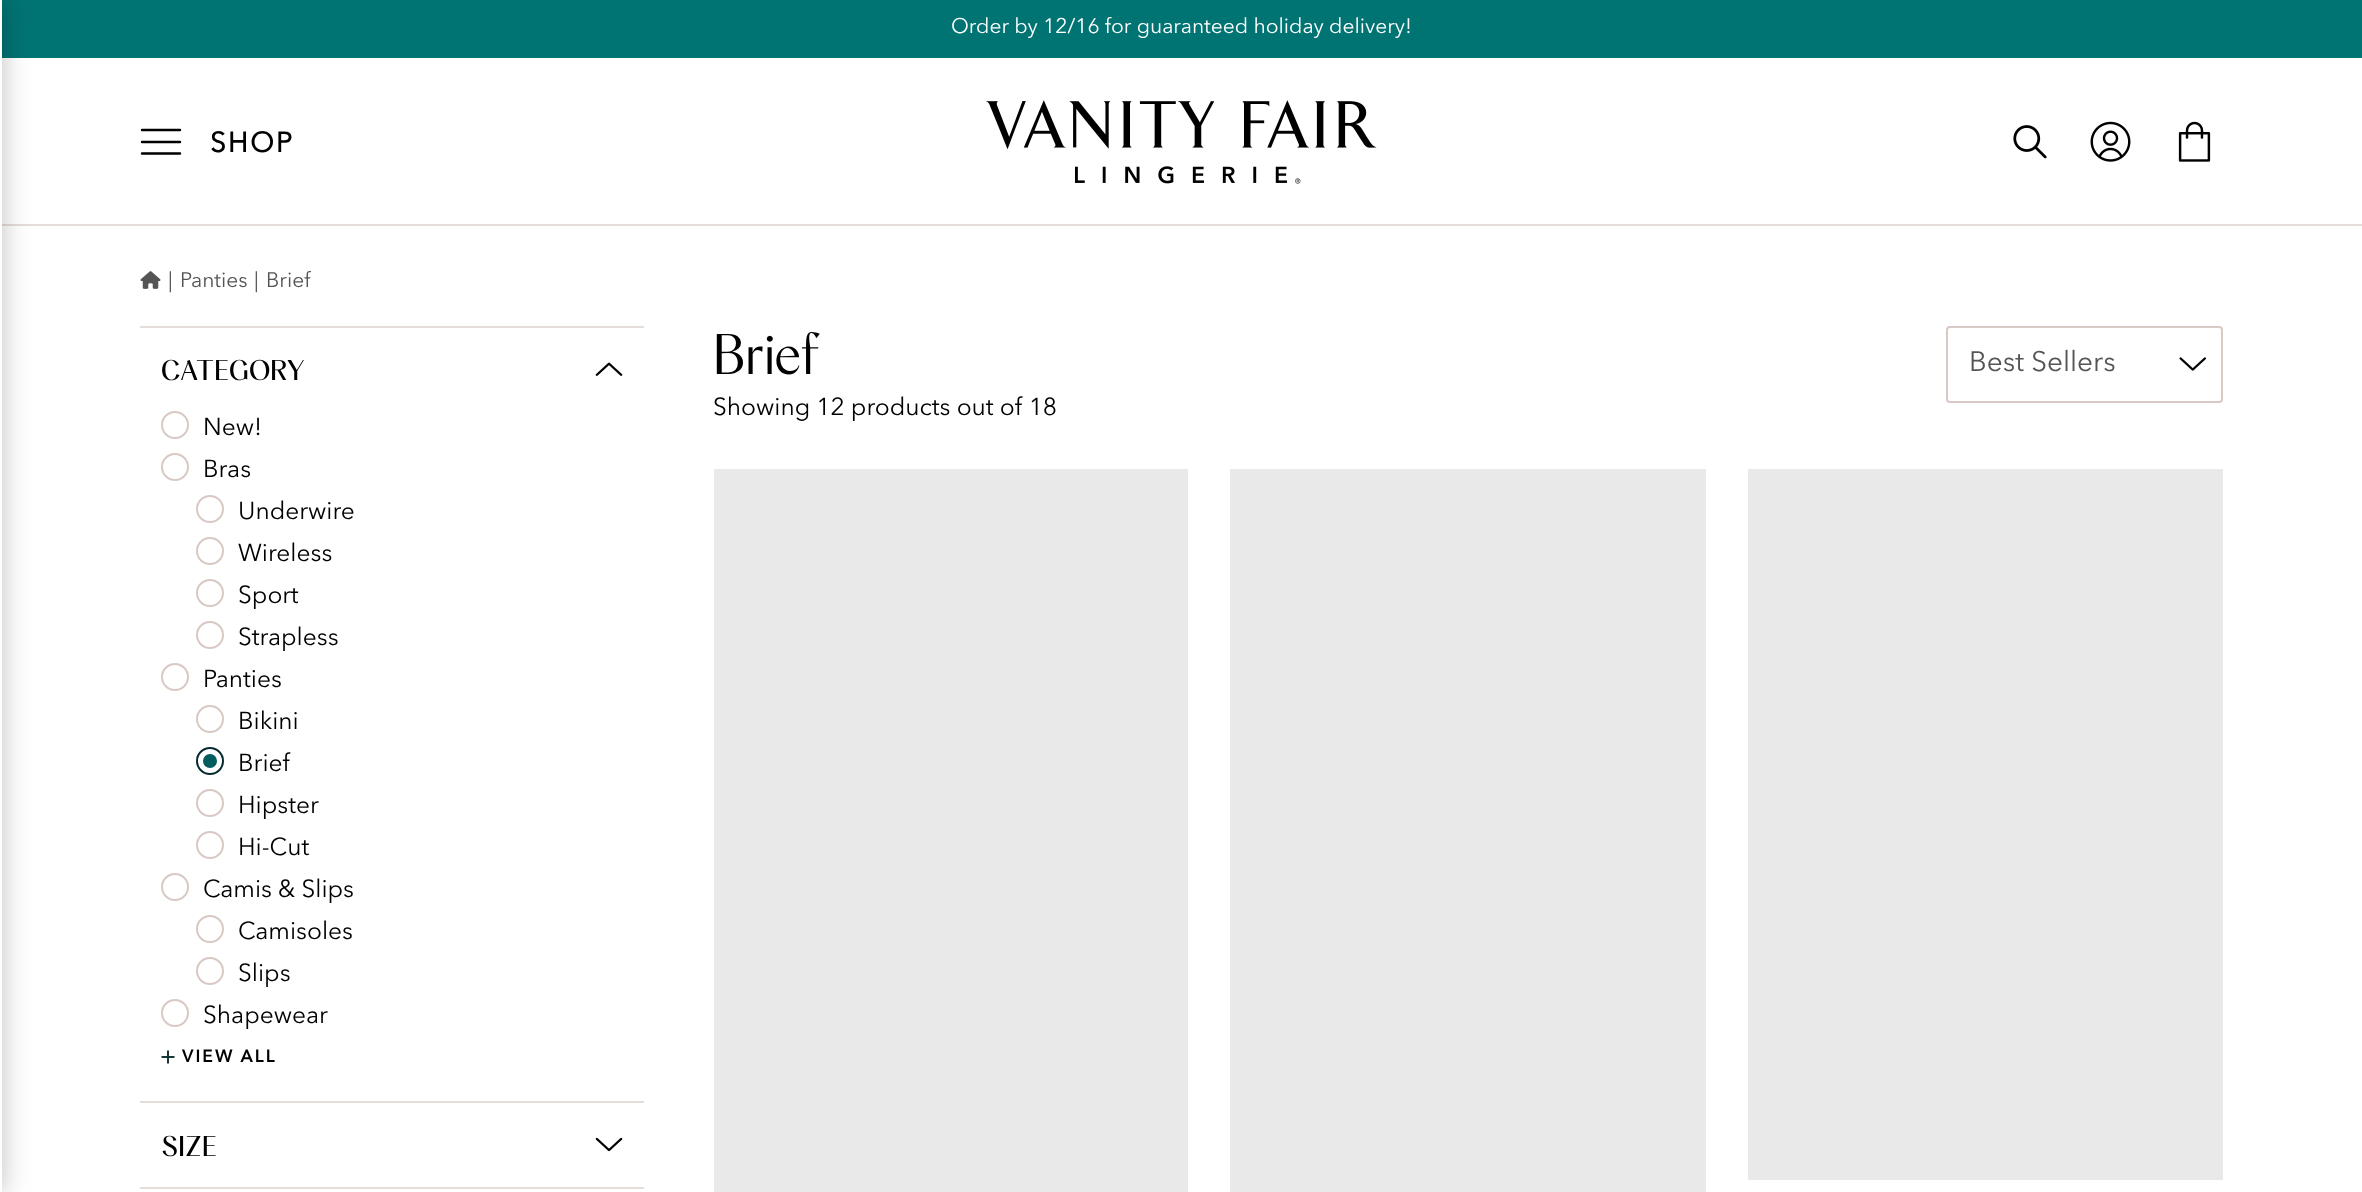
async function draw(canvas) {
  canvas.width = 2362
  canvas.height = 1192
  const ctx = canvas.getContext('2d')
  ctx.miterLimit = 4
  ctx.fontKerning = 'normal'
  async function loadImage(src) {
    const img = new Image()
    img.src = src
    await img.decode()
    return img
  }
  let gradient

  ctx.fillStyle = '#fff'
  ctx.fillRect(0, 0, 2362, 1192)
  ctx.fillStyle = '#007473'
  ctx.fillRect(2, 0, 2360, 58)
  ctx.font = '21px Avenir Next'
  ctx.fillStyle = '#fff'
  ctx.fillText('Order by 12/16 for guaranteed holiday delivery!', 951, 33)
  ctx.fillStyle = '#e6ddda'
  ctx.fillRect(0, 224, 2362, 2)
  ctx.fillStyle = '#00000040'
  ctx.filter = 'blur(14px)'
  ctx.beginPath()
  ctx.rect(-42, 0, 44, 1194)
  ctx.fill()
  ctx.filter = 'none'
  ctx.fillStyle = '#fff'
  ctx.fillRect(0, 0, 2, 1192)
  ctx.beginPath()
  ctx.moveTo(142, 153.5)
  ctx.lineTo(180, 153.5)
  ctx.moveTo(142, 142)
  ctx.lineTo(180, 142)
  ctx.moveTo(142, 130)
  ctx.lineTo(180, 130)
  ctx.strokeStyle = '#000'
  ctx.lineWidth = 2.4
  ctx.lineCap = 'round'
  ctx.lineJoin = 'round'
  ctx.stroke()
  ctx.letterSpacing = '2px'
  ctx.font = 'bold 28px "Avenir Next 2"'
  ctx.fillStyle = '#000'
  ctx.fillText('SHOP', 210, 152)
  ctx.drawImage(await loadImage('image0.png'), 986, 100, 391, 84)
  ctx.drawImage(await loadImage('image1.png'), 2013, 125, 34, 34)
  ctx.drawImage(await loadImage('image2.png'), 2090, 121, 41, 41)
  ctx.drawImage(await loadImage('image3.png'), 2178, 121, 33, 41)
  ctx.drawImage(await loadImage('image4.png'), 140, 271, 21, 18)
  ctx.letterSpacing = '0px'
  ctx.font = '21px Avenir Next'
  ctx.fillStyle = '#555'
  ctx.fillText('|', 168, 287)
  ctx.fillText('Panties', 180, 287)
  ctx.fillText('|', 254, 287)
  ctx.fillText('Brief', 266, 287)
  ctx.fillStyle = '#e6ddda'
  ctx.fillRect(140, 326, 504, 2)
  ctx.font = '28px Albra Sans'
  ctx.fillStyle = '#000'
  ctx.fillText('CATEGORY', 161, 380)
  ctx.drawImage(await loadImage('image5.png'), 595, 362, 28, 14)
  ctx.beginPath()
  ctx.arc(175, 425, 13, 0, 2 * Math.PI)
  ctx.strokeStyle = '#d8c9c4'
  ctx.lineWidth = 2
  ctx.stroke()
  ctx.font = '24.5px Avenir Next'
  ctx.fillText('New!', 203, 435)
  ctx.beginPath()
  ctx.arc(175, 467, 13, 0, 2 * Math.PI)
  ctx.stroke()
  ctx.fillText('Bras', 203, 477)
  ctx.beginPath()
  ctx.arc(210, 509, 13, 0, 2 * Math.PI)
  ctx.stroke()
  ctx.fillText('Underwire', 238, 519)
  ctx.beginPath()
  ctx.arc(210, 551, 13, 0, 2 * Math.PI)
  ctx.stroke()
  ctx.fillText('Wireless', 238, 561)
  ctx.beginPath()
  ctx.arc(210, 593, 13, 0, 2 * Math.PI)
  ctx.stroke()
  ctx.fillText('Sport', 238, 603)
  ctx.beginPath()
  ctx.arc(210, 635, 13, 0, 2 * Math.PI)
  ctx.stroke()
  ctx.fillText('Strapless', 238, 645)
  ctx.beginPath()
  ctx.arc(175, 677, 13, 0, 2 * Math.PI)
  ctx.stroke()
  ctx.fillText('Panties', 203, 687)
  ctx.beginPath()
  ctx.arc(210, 719, 13, 0, 2 * Math.PI)
  ctx.stroke()
  ctx.fillText('Bikini', 238, 729)
  ctx.beginPath()
  ctx.arc(210, 761, 13, 0, 2 * Math.PI)
  ctx.strokeStyle = '#072a31'
  ctx.stroke()
  ctx.fillStyle = '#005c5d'
  ctx.beginPath()
  ctx.arc(210, 761, 7, 0, 2 * Math.PI)
  ctx.fill()
  ctx.fillStyle = '#000'
  ctx.fillText('Brief', 238, 771)
  ctx.beginPath()
  ctx.arc(210, 803, 13, 0, 2 * Math.PI)
  ctx.strokeStyle = '#d8c9c4'
  ctx.stroke()
  ctx.fillText('Hipster', 238, 813)
  ctx.beginPath()
  ctx.arc(210, 845, 13, 0, 2 * Math.PI)
  ctx.stroke()
  ctx.fillText('Hi-Cut', 238, 855)
  ctx.beginPath()
  ctx.arc(175, 887, 13, 0, 2 * Math.PI)
  ctx.stroke()
  ctx.fillText('Camis & Slips', 203, 897)
  ctx.beginPath()
  ctx.arc(210, 929, 13, 0, 2 * Math.PI)
  ctx.stroke()
  ctx.fillText('Camisoles', 238, 939)
  ctx.beginPath()
  ctx.arc(210, 971, 13, 0, 2 * Math.PI)
  ctx.stroke()
  ctx.fillText('Slips', 238, 981)
  ctx.beginPath()
  ctx.arc(175, 1013, 13, 0, 2 * Math.PI)
  ctx.stroke()
  ctx.fillText('Shapewear', 203, 1023)
  ctx.drawImage(await loadImage('image6.png'), 161, 1050, 14, 14)
  ctx.letterSpacing = '2px'
  ctx.font = 'bold 17.5px Avenir Next'
  ctx.fillText('VIEW ALL', 182, 1062)
  ctx.fillStyle = '#e6ddda'
  ctx.fillRect(140, 1101, 504, 2)
  ctx.letterSpacing = '0px'
  ctx.font = '28px Albra Sans'
  ctx.fillStyle = '#000'
  ctx.fillText('SIZE', 161, 1156)
  ctx.drawImage(await loadImage('image7.png'), 595, 1137, 28, 15)
  ctx.fillStyle = '#e6ddda'
  ctx.fillRect(140, 1187, 504, 2)
  ctx.font = '300 56px Albra Sans'
  ctx.fillStyle = '#000'
  ctx.fillText('Brief', 713, 374)
  ctx.font = '24.5px Avenir Next'
  ctx.fillText('Showing 12 products out of 18', 713, 415)
  ctx.drawImage(await loadImage('image8.png'), 2179, 357, 27, 14)
  ctx.beginPath()
  ctx.roundRect(1947, 327, 275, 75, 3)
  ctx.lineJoin = 'miter'
  ctx.stroke()
  ctx.font = '28px Avenir Next'
  ctx.fillStyle = '#555'
  ctx.fillText('Best Sellers', 1969, 371)
  gradient = ctx.createLinearGradient(785, 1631, -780, 66)
  gradient.addColorStop(0.4, '#e9e9e9')
  gradient.addColorStop(0.5, '#f7f7f7')
  gradient.addColorStop(0.6, '#e9e9e9')
  ctx.fillStyle = gradient
  ctx.fillRect(714, 469, 474, 723)
  gradient = ctx.createLinearGradient(1301, 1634, -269, 64)
  gradient.addColorStop(0.4, '#e9e9e9')
  gradient.addColorStop(0.5, '#f7f7f7')
  gradient.addColorStop(0.6, '#e9e9e9')
  ctx.fillStyle = gradient
  ctx.fillRect(1230, 469, 476, 723)
  gradient = ctx.createLinearGradient(1807, 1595, 266, 54)
  gradient.addColorStop(0.4, '#e9e9e9')
  gradient.addColorStop(0.5, '#f7f7f7')
  gradient.addColorStop(0.6, '#e9e9e9')
  ctx.fillStyle = gradient
  ctx.fillRect(1748, 469, 475, 711)
}

draw(document.querySelector('canvas'))
